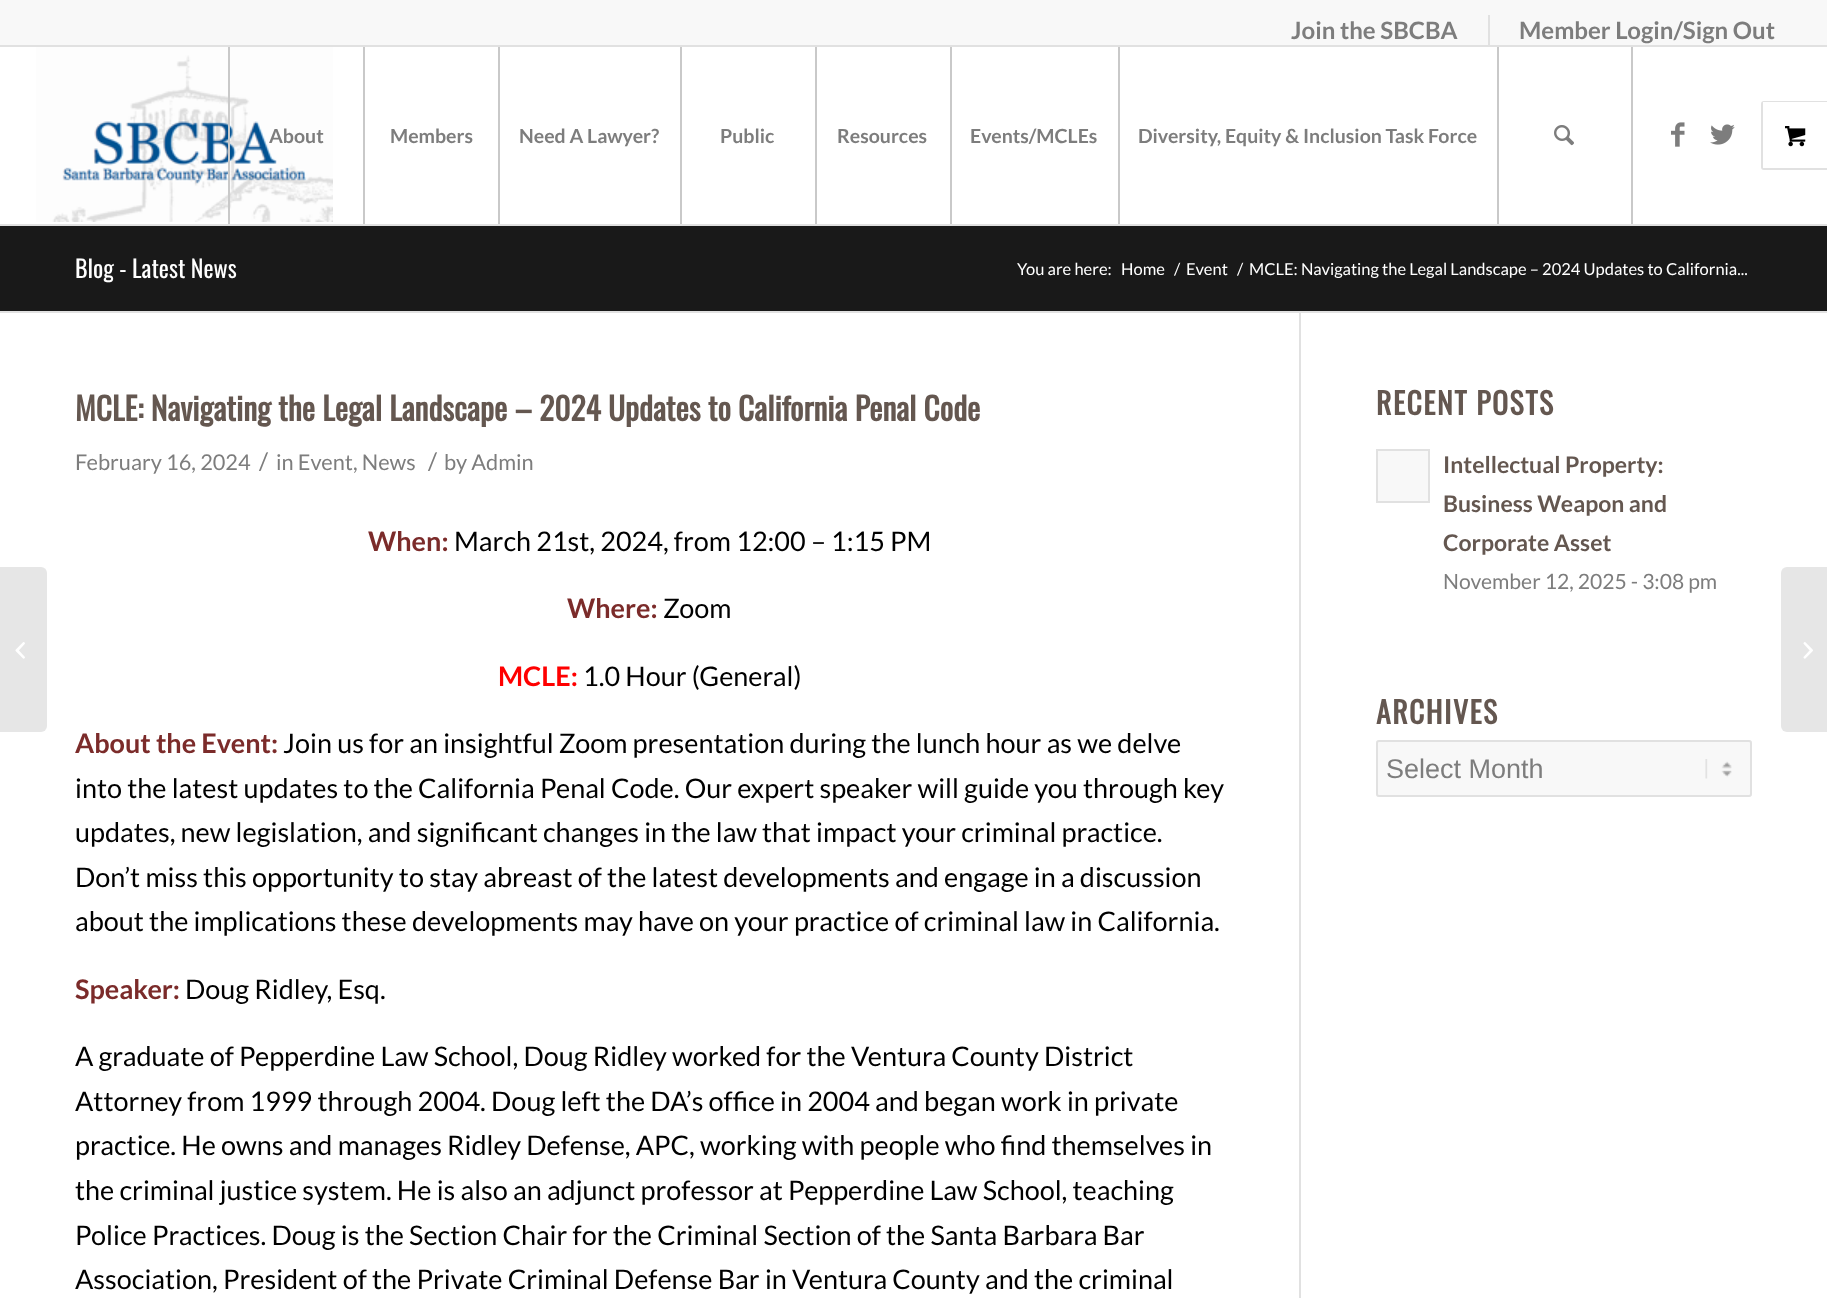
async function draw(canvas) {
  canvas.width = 1827
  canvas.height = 1298
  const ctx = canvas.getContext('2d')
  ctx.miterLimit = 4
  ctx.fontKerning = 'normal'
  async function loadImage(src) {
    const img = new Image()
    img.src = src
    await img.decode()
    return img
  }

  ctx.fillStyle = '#fff'
  ctx.fillRect(0, 0, 1827, 1298)
  ctx.fillStyle = '#f8f8f8'
  ctx.fillRect(0, 0, 1827, 45)
  ctx.fillStyle = '#e1e1e1'
  ctx.fillRect(0, 45, 1827, 2)
  ctx.fillRect(1488, 15, 2, 30)
  ctx.font = 'bold 24px Lato'
  ctx.fillStyle = '#7d7d7d'
  ctx.fillText('Join the SBCBA', 1291, 39)
  ctx.fillText('Member Login/Sign Out', 1519, 39)
  ctx.fillStyle = '#e1e1e1'
  ctx.fillRect(0, 224, 1827, 2)
  ctx.drawImage(await loadImage('image0.png'), 36, 47, 297, 175)
  ctx.fillStyle = '#c9c9c9'
  ctx.fillRect(228, 47, 2, 177)
  ctx.font = 'bold 19.5px Lato'
  ctx.fillStyle = '#7d7d7d'
  ctx.fillText('About', 269, 143)
  ctx.fillStyle = '#c9c9c9'
  ctx.fillRect(363, 47, 2, 177)
  ctx.fillStyle = '#7d7d7d'
  ctx.fillText('Members', 390, 143)
  ctx.fillStyle = '#c9c9c9'
  ctx.fillRect(498, 47, 2, 177)
  ctx.fillStyle = '#7d7d7d'
  ctx.fillText('Need A Lawyer?', 519, 143)
  ctx.fillStyle = '#c9c9c9'
  ctx.fillRect(680, 47, 2, 177)
  ctx.fillStyle = '#7d7d7d'
  ctx.fillText('Public', 720, 143)
  ctx.fillStyle = '#c9c9c9'
  ctx.fillRect(815, 47, 2, 177)
  ctx.fillStyle = '#7d7d7d'
  ctx.fillText('Resources', 837, 143)
  ctx.fillStyle = '#c9c9c9'
  ctx.fillRect(950, 47, 2, 177)
  ctx.fillStyle = '#7d7d7d'
  ctx.fillText('Events/MCLEs', 970, 143)
  ctx.fillStyle = '#c9c9c9'
  ctx.fillRect(1118, 47, 2, 177)
  ctx.fillStyle = '#7d7d7d'
  ctx.fillText('Diversity, Equity & Inclusion Task Force', 1138, 143)
  ctx.fillStyle = '#c9c9c9'
  ctx.fillRect(1631, 47, 2, 177)
  ctx.fillRect(1497, 47, 2, 177)
  ctx.drawImage(await loadImage('image1.png'), 1554, 125, 20, 21)
  ctx.drawImage(await loadImage('image2.png'), 1671, 122, 14, 25)
  ctx.drawImage(await loadImage('image3.png'), 1710, 124, 25, 21)
  ctx.beginPath()
  ctx.roundRect(1762, 102, 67, 67, 2)
  ctx.strokeStyle = '#e1e1e1'
  ctx.lineWidth = 2
  ctx.stroke()
  ctx.fillStyle = '#fff'
  ctx.fillRect(1763, 102, 64, 66)
  ctx.drawImage(await loadImage('image4.png'), 1785, 126, 21, 21)
  ctx.fillStyle = '#e6e6e6'
  ctx.beginPath()
  ctx.roundRect(0, 567, 47, 165, [0, 6, 6, 0])
  ctx.fill()
  ctx.drawImage(await loadImage('image5.png'), 15, 642, 10, 17)
  ctx.fillStyle = '#191919'
  ctx.fillRect(0, 226, 1827, 85)
  ctx.font = '24px Oswald'
  ctx.fillStyle = '#fff'
  ctx.fillText('Blog - Latest News', 75, 278)
  ctx.font = '16.5px Lato'
  ctx.fillText('You are here:', 1017, 275)
  ctx.fillText('Home', 1121, 275)
  ctx.fillText('/', 1174, 275)
  ctx.fillText('Event', 1186, 275)
  ctx.fillText('/', 1237, 275)
  ctx.fillText('MCLE: Navigating the Legal Landscape – 2024 Updates to California...', 1249, 275)
  ctx.fillStyle = '#e1e1e1'
  ctx.fillRect(0, 311, 1827, 2)
  ctx.fillRect(1299, 312, 2, 986)
  ctx.font = 'bold 31.5px Oswald'
  ctx.fillStyle = '#645750'
  ctx.fillText('MCLE: Navigating the Legal Landscape – 2024 Updates to California Penal Code', 75, 421)
  ctx.font = '21.75px Lato'
  ctx.fillStyle = '#7d7d7d'
  ctx.fillText('February 16, 2024', 75, 470)
  ctx.font = '24px Lato'
  ctx.fillText('/', 259, 470)
  ctx.font = '21.75px Lato'
  ctx.fillText('in Event, News', 276, 470)
  ctx.font = '24px Lato'
  ctx.fillText('/', 428, 470)
  ctx.font = '21.75px Lato'
  ctx.fillText('by Admin', 444, 470)
  ctx.font = 'bold 27px Lato'
  ctx.fillStyle = '#7b2b2a'
  ctx.fillText('When:', 368, 551)
  ctx.font = '27px Lato'
  ctx.fillStyle = '#000'
  ctx.fillText('March 21st, 2024, from 12:00 – 1:15 PM', 454, 551)
  ctx.font = 'bold 27px Lato'
  ctx.fillStyle = '#7b2b2a'
  ctx.fillText('Where:', 567, 618)
  ctx.font = '27px Lato'
  ctx.fillStyle = '#000'
  ctx.fillText('Zoom', 663, 618)
  ctx.font = 'bold 27px Lato'
  ctx.fillStyle = '#f00'
  ctx.fillText('MCLE:', 498, 686)
  ctx.font = '27px Lato'
  ctx.fillStyle = '#000'
  ctx.fillText('1.0 Hour (General)', 583, 686)
  ctx.font = 'bold 27px Lato'
  ctx.fillStyle = '#7b2b2a'
  ctx.fillText('About the Event:', 75, 753)
  ctx.font = '27px Lato'
  ctx.fillStyle = '#000'
  ctx.fillText('Join us for an insightful Zoom presentation during the lunch hour as we delve', 283, 753)
  ctx.fillText('into the latest updates to the California Penal Code. Our expert speaker will guide you through key', 75, 798)
  ctx.fillText('updates, new legislation, and significant changes in the law that impact your criminal practice.', 75, 842)
  ctx.fillText('Don’t miss this opportunity to stay abreast of the latest developments and engage in a discussion', 75, 887)
  ctx.fillText('about the implications these developments may have on your practice of criminal law in California.', 75, 931)
  ctx.font = 'bold 27px Lato'
  ctx.fillStyle = '#7b2b2a'
  ctx.fillText('Speaker:', 75, 999)
  ctx.font = '27px Lato'
  ctx.fillStyle = '#000'
  ctx.fillText('Doug Ridley, Esq.', 185, 999)
  ctx.fillText('A graduate of Pepperdine Law School, Doug Ridley worked for the Ventura County District', 75, 1066)
  ctx.fillText('Attorney from 1999 through 2004. Doug left the DA’s office in 2004 and began work in private', 75, 1111)
  ctx.fillText('practice. He owns and manages Ridley Defense, APC, working with people who find themselves in', 75, 1155)
  ctx.fillText('the criminal justice system. He is also an adjunct professor at Pepperdine Law School, teaching', 75, 1200)
  ctx.fillText('Police Practices. Doug is the Section Chair for the Criminal Section of the Santa Barbara Bar', 75, 1245)
  ctx.fillText('Association, President of the Private Criminal Defense Bar in Ventura County and the criminal', 75, 1289)
  ctx.letterSpacing = '1.5px'
  ctx.font = 'bold 29.75px Oswald'
  ctx.fillStyle = '#645750'
  ctx.fillText('RECENT POSTS', 1376, 415)
  ctx.fillStyle = '#f8f8f8'
  ctx.beginPath()
  ctx.rect(1377, 450, 52, 52)
  ctx.fill()
  ctx.stroke()
  ctx.letterSpacing = '0px'
  ctx.font = 'bold 23px Lato'
  ctx.fillStyle = '#645750'
  ctx.fillText('Intellectual Property:', 1443, 473)
  ctx.fillText('Business Weapon and', 1443, 512)
  ctx.fillText('Corporate Asset', 1443, 551)
  ctx.font = '21.1px Lato'
  ctx.fillStyle = '#7d7d7d'
  ctx.fillText('November 12, 2025 - 3:08 pm', 1443, 589)
  ctx.letterSpacing = '1.5px'
  ctx.font = 'bold 29.75px Oswald'
  ctx.fillStyle = '#645750'
  ctx.fillText('ARCHIVES', 1376, 724)
  ctx.fillStyle = '#f8f8f8'
  ctx.beginPath()
  ctx.roundRect(1376, 740, 376, 57, 3)
  ctx.fill()
  ctx.drawImage(await loadImage('image6.png'), 1705, 759, 27, 20)
  ctx.beginPath()
  ctx.roundRect(1377, 741, 374, 55, 2)
  ctx.stroke()
  ctx.letterSpacing = '0px'
  ctx.font = '27px Liberation Sans'
  ctx.fillStyle = '#7d7d7d'
  ctx.fillText('Select Month', 1386, 778)
  ctx.fillStyle = '#e6e6e6'
  ctx.beginPath()
  ctx.roundRect(1781, 567, 46, 165, [6, 0, 0, 6])
  ctx.fill()
  ctx.drawImage(await loadImage('image7.png'), 1803, 642, 10, 17)
}

draw(document.querySelector('canvas'))
